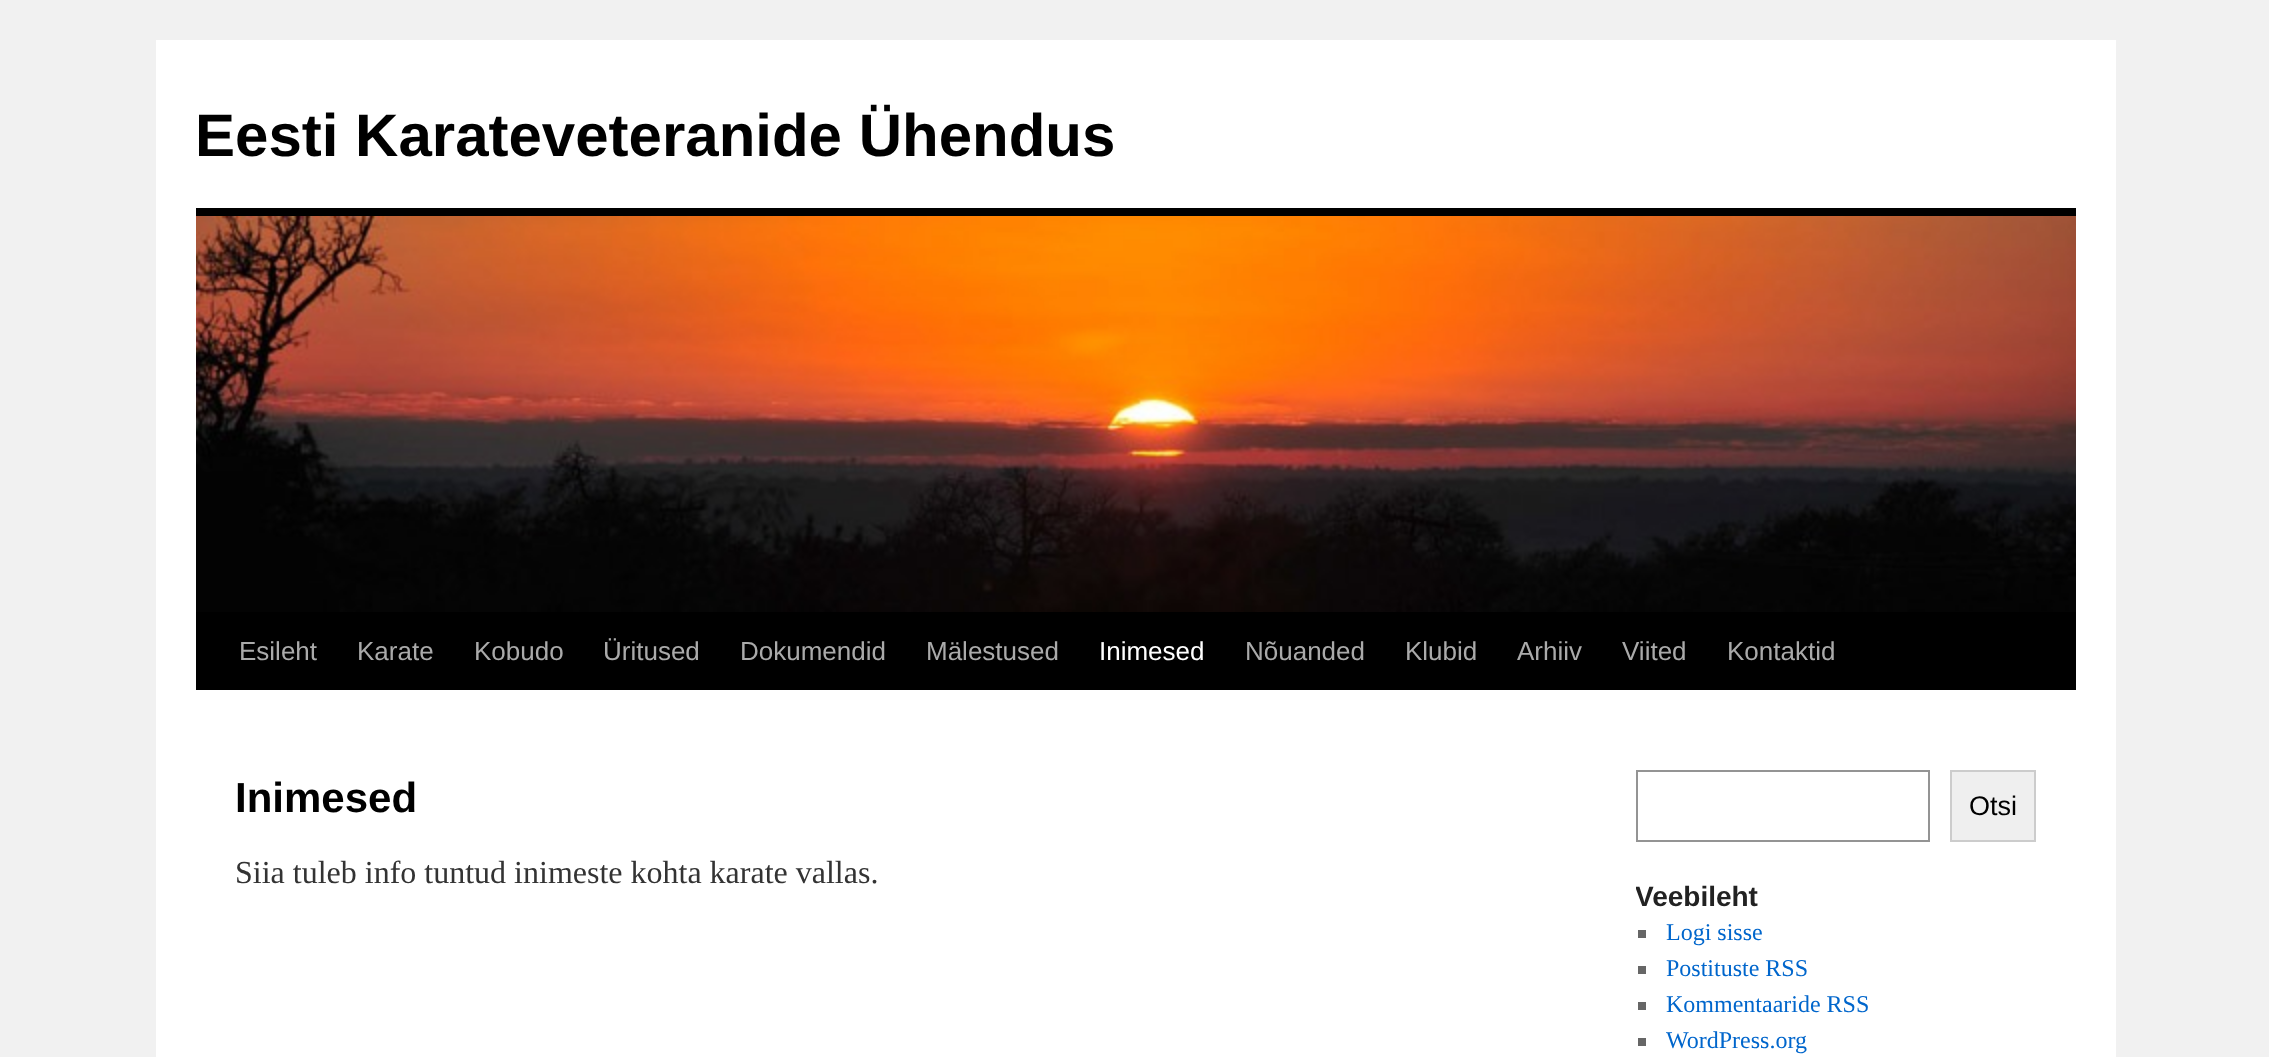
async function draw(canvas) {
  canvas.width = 2269
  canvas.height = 1057
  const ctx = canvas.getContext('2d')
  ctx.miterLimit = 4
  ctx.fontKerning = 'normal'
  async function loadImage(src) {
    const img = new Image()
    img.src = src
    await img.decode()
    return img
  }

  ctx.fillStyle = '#f1f1f1'
  ctx.fillRect(0, 0, 2269, 1057)
  ctx.fillStyle = '#fff'
  ctx.fillRect(156, 40, 1960, 1017)
  ctx.font = 'bold 60px Liberation Sans'
  ctx.fillStyle = '#000'
  ctx.fillText('Eesti Karateveteranide Ühendus', 195, 156)
  ctx.fillRect(196, 208, 1880, 8)
  ctx.fillRect(196, 612, 1880, 78)
  ctx.drawImage(await loadImage('image0.png'), 196, 216, 1880, 396)
  ctx.font = '26px Liberation Sans'
  ctx.fillStyle = '#aaa'
  ctx.fillText('Esileht', 239, 660)
  ctx.fillText('Karate', 357, 660)
  ctx.fillText('Kobudo', 474, 660)
  ctx.fillText('Üritused', 603, 660)
  ctx.fillText('Dokumendid', 740, 660)
  ctx.fillText('Mälestused', 926, 660)
  ctx.fillStyle = '#fff'
  ctx.fillText('Inimesed', 1099, 660)
  ctx.fillStyle = '#aaa'
  ctx.fillText('Nõuanded', 1245, 660)
  ctx.fillText('Klubid', 1405, 660)
  ctx.fillText('Arhiiv', 1517, 660)
  ctx.fillText('Viited', 1622, 660)
  ctx.fillText('Kontaktid', 1727, 660)
  ctx.font = 'bold 42px Liberation Sans'
  ctx.fillStyle = '#000'
  ctx.fillText('Inimesed', 235, 812)
  ctx.font = '32px Liberation Serif'
  ctx.fillStyle = '#333'
  ctx.fillText('Siia tuleb info tuntud inimeste kohta karate vallas.', 235, 883)
  ctx.strokeStyle = '#949494'
  ctx.lineWidth = 2
  ctx.strokeRect(1637, 771, 292, 70)
  ctx.fillStyle = '#efefef'
  ctx.beginPath()
  ctx.rect(1951, 771, 84, 70)
  ctx.fill()
  ctx.strokeStyle = '#ccc'
  ctx.stroke()
  ctx.font = '27px Liberation Sans'
  ctx.fillStyle = '#000'
  ctx.fillText('Otsi', 1969, 815)
  ctx.save()
  ctx.beginPath()
  ctx.rect(1636, 770, 440, 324)
  ctx.clip()
  ctx.font = 'bold 28px Liberation Sans'
  ctx.fillStyle = '#222'
  ctx.fillText('Veebileht', 1635, 906)
  ctx.restore()
  ctx.fillStyle = '#666'
  ctx.fillRect(1638, 930, 8, 8)
  ctx.font = '24px Liberation Serif'
  ctx.fillStyle = '#06c'
  ctx.fillText('Logi sisse', 1666, 940)
  ctx.fillStyle = '#666'
  ctx.fillRect(1638, 966, 8, 8)
  ctx.fillStyle = '#06c'
  ctx.fillText('Postituste RSS', 1666, 976)
  ctx.fillStyle = '#666'
  ctx.fillRect(1638, 1002, 8, 8)
  ctx.fillStyle = '#06c'
  ctx.fillText('Kommentaaride RSS', 1666, 1012)
  ctx.fillStyle = '#666'
  ctx.fillRect(1638, 1038, 8, 8)
  ctx.fillStyle = '#06c'
  ctx.fillText('WordPress.org', 1666, 1048)
}

draw(document.querySelector('canvas'))
